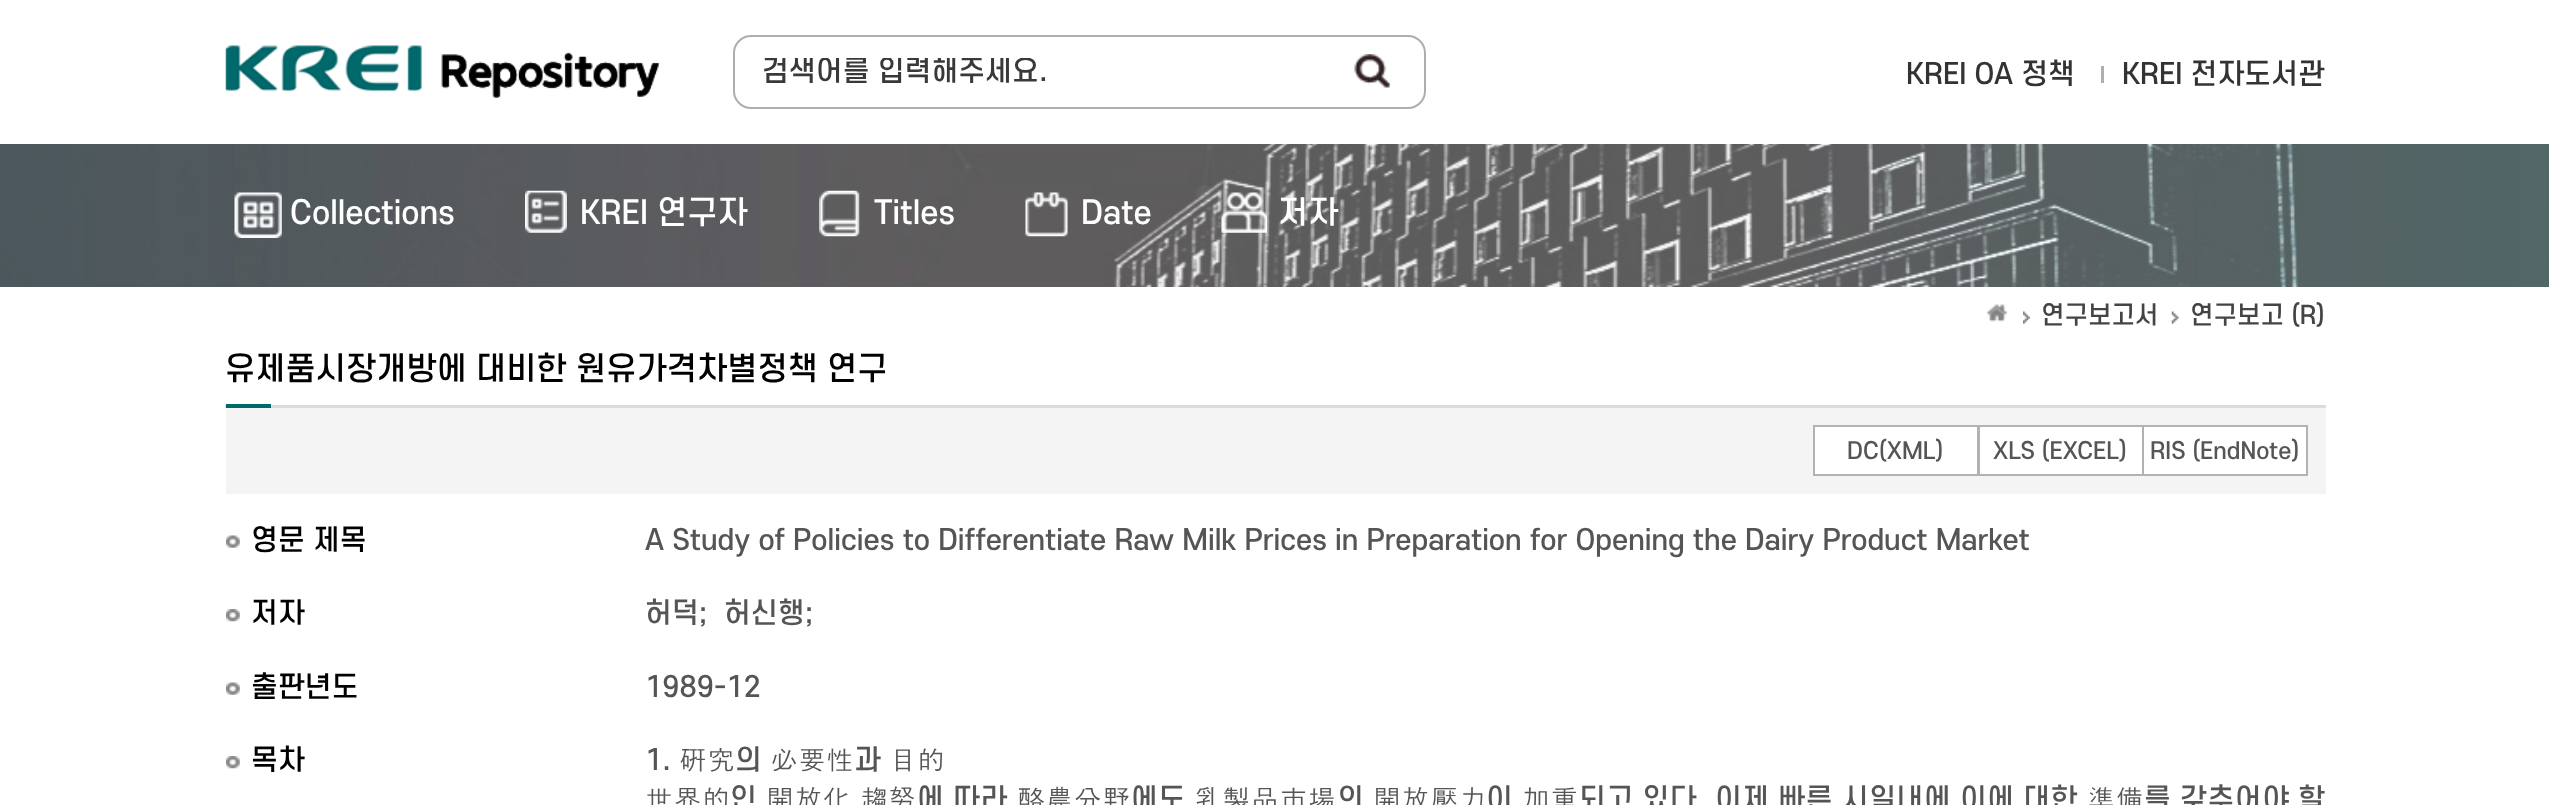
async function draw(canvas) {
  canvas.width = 2549
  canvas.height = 805
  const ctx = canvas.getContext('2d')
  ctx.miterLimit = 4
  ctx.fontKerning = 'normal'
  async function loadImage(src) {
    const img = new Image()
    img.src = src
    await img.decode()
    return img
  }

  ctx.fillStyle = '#fff'
  ctx.fillRect(0, 0, 2549, 805)
  ctx.drawImage(await loadImage('image0.png'), 225, 45, 435, 53)
  ctx.beginPath()
  ctx.roundRect(734, 36, 691, 72, 17)
  ctx.strokeStyle = '#aeaeae'
  ctx.lineWidth = 2
  ctx.stroke()
  ctx.save()
  ctx.beginPath()
  ctx.rect(763, 58, 562, 33)
  ctx.clip()
  ctx.font = '500 28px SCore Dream'
  ctx.fillStyle = '#393939'
  ctx.fillText('검색어를 입력해주세요.', 762, 81)
  ctx.restore()
  ctx.drawImage(await loadImage('image1.png'), 1354, 54, 37, 34)
  ctx.font = '500 28px SCore Dream'
  ctx.fillStyle = '#333'
  ctx.fillText('KREI OA 정책', 1906, 84)
  ctx.fillStyle = '#afafaf'
  ctx.fillRect(2101, 66, 3, 17)
  ctx.fillStyle = '#333'
  ctx.fillText('KREI 전자도서관', 2122, 84)
  ctx.drawImage(await loadImage('image2.png'), 0, 144, 2549, 143)
  ctx.drawImage(await loadImage('image3.png'), 234, 192, 48, 46)
  ctx.font = '500 31.5px SCore Dream'
  ctx.fillStyle = '#fff'
  ctx.fillText('Collections', 290, 224)
  ctx.drawImage(await loadImage('image4.png'), 525, 190, 42, 43)
  ctx.fillText('KREI 연구자', 580, 224)
  ctx.drawImage(await loadImage('image5.png'), 819, 190, 41, 47)
  ctx.fillText('Titles', 874, 224)
  ctx.drawImage(await loadImage('image6.png'), 1025, 192, 43, 45)
  ctx.fillText('Date', 1081, 224)
  ctx.drawImage(await loadImage('image7.png'), 1221, 192, 46, 41)
  ctx.fillText('저자', 1278, 224)
  ctx.drawImage(await loadImage('image8.png'), 1986, 304, 22, 18)
  ctx.drawImage(await loadImage('image9.png'), 2023, 311, 7, 13)
  ctx.font = '500 24.5px SCore Dream'
  ctx.fillStyle = '#444'
  ctx.fillText('연구보고서', 2041, 324)
  ctx.drawImage(await loadImage('image10.png'), 2171, 311, 8, 13)
  ctx.fillText('연구보고 (R)', 2190, 324)
  ctx.fillStyle = '#dcdcdc'
  ctx.fillRect(225, 405, 2101, 3)
  ctx.font = '500 31.5px SCore Dream'
  ctx.fillStyle = '#000'
  ctx.fillText('유제품시장개방에 대비한 원유가격차별정책 연구', 225, 380)
  ctx.fillStyle = '#00696c'
  ctx.fillRect(226, 404, 45, 4)
  ctx.fillStyle = '#f4f4f4'
  ctx.fillRect(226, 408, 2100, 86)
  ctx.fillStyle = '#fff'
  ctx.beginPath()
  ctx.rect(1814, 426, 164, 49)
  ctx.fill()
  ctx.strokeStyle = '#b2b2b2'
  ctx.stroke()
  ctx.font = '500 22.75px SCore Dream'
  ctx.fillStyle = '#555'
  ctx.fillText('DC(XML)', 1847, 459)
  ctx.fillStyle = '#fff'
  ctx.beginPath()
  ctx.rect(1979, 426, 164, 49)
  ctx.fill()
  ctx.stroke()
  ctx.fillStyle = '#555'
  ctx.fillText('XLS (EXCEL)', 1993, 459)
  ctx.fillStyle = '#fff'
  ctx.beginPath()
  ctx.rect(2143, 426, 164, 49)
  ctx.fill()
  ctx.stroke()
  ctx.fillStyle = '#555'
  ctx.fillText('RIS (EndNote)', 2150, 459)
  ctx.drawImage(await loadImage('image11.png'), 226, 535, 14, 13)
  ctx.font = '500 28px SCore Dream'
  ctx.fillStyle = '#000'
  ctx.fillText('영문 제목', 251, 550)
  ctx.fillStyle = '#555'
  ctx.fillText('A Study of Policies to Differentiate Raw Milk Prices in Preparation for Opening the Dairy Product Market', 645, 550)
  ctx.drawImage(await loadImage('image12.png'), 226, 609, 14, 13)
  ctx.fillStyle = '#000'
  ctx.fillText('저자', 251, 623)
  ctx.fillStyle = '#555'
  ctx.fillText('허덕;', 645, 623)
  ctx.fillText('허신행;', 724, 623)
  ctx.drawImage(await loadImage('image11.png'), 226, 682, 14, 13)
  ctx.fillStyle = '#000'
  ctx.fillText('출판년도', 251, 697)
  ctx.fillStyle = '#555'
  ctx.fillText('1989-12', 645, 697)
  ctx.drawImage(await loadImage('image12.png'), 226, 756, 14, 13)
  ctx.fillStyle = '#000'
  ctx.fillText('목차', 251, 770)
  ctx.fillStyle = '#555'
  ctx.fillText('1.', 645, 770)
  ctx.font = '28px Dotum'
  ctx.fillText('硏究', 679, 770)
  ctx.font = '500 28px SCore Dream'
  ctx.fillText('의', 735, 770)
  ctx.font = '28px Dotum'
  ctx.fillText('必要性', 770, 770)
  ctx.font = '500 28px SCore Dream'
  ctx.fillText('과', 854, 770)
  ctx.font = '28px Dotum'
  ctx.fillText('目的', 889, 770)
  ctx.letterSpacing = '0.5px'
  ctx.fillText('世界的', 645, 809)
  ctx.font = '500 28px SCore Dream'
  ctx.fillText('인', 730, 809)
  ctx.font = '28px Dotum'
  ctx.fillText('開放化', 766, 809)
  ctx.fillText('趨努', 860, 809)
  ctx.font = '500 28px SCore Dream'
  ctx.fillText('에 따라', 917, 809)
  ctx.font = '28px Dotum'
  ctx.fillText('酪農分野', 1017, 809)
  ctx.font = '500 28px SCore Dream'
  ctx.fillText('에도', 1131, 809)
  ctx.font = '28px Dotum'
  ctx.fillText('乳製品市場', 1194, 809)
  ctx.font = '500 28px SCore Dream'
  ctx.fillText('의', 1337, 809)
  ctx.font = '28px Dotum'
  ctx.fillText('開放壓力', 1373, 809)
  ctx.font = '500 28px SCore Dream'
  ctx.fillText('이', 1486, 809)
  ctx.font = '28px Dotum'
  ctx.fillText('加重', 1522, 809)
  ctx.font = '500 28px SCore Dream'
  ctx.fillText('되고 있다. 이제 빠른 시일내에 이에 대한', 1579, 809)
  ctx.font = '28px Dotum'
  ctx.fillText('準備', 2087, 809)
  ctx.font = '500 28px SCore Dream'
  ctx.fillText('를 갖추어야 할', 2144, 809)
}

draw(document.querySelector('canvas'))
